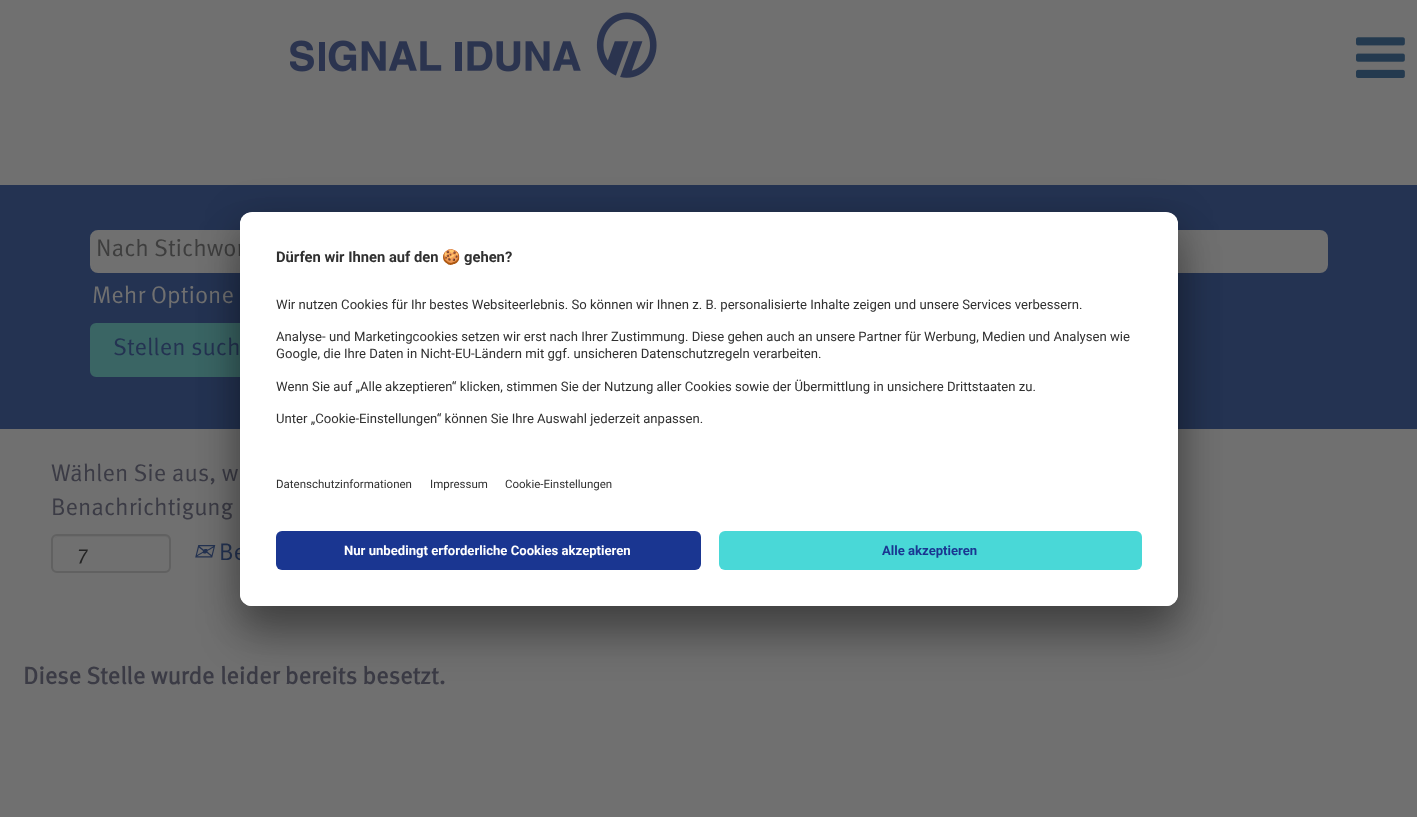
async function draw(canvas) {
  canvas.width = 1417
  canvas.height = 817
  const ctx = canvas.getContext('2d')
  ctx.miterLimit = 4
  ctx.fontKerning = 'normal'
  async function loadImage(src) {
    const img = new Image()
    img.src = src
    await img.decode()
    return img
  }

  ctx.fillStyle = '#707070'
  ctx.fillRect(0, 0, 1417, 817)
  ctx.drawImage(await loadImage('image0.png'), 290, 12, 367, 66)
  ctx.drawImage(await loadImage('image1.png'), 1356, 37, 49, 41)
  ctx.fillStyle = '#243352'
  ctx.fillRect(0, 185, 1417, 244)
  ctx.fillStyle = '#707070'
  ctx.beginPath()
  ctx.roundRect(91.5, 231.5, 1235, 40, 6.5)
  ctx.fill()
  ctx.strokeStyle = '#707070'
  ctx.lineWidth = 3
  ctx.stroke()
  ctx.save()
  ctx.beginPath()
  ctx.rect(93, 239, 1232, 24)
  ctx.clip()
  ctx.font = '24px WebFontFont'
  ctx.fillStyle = '#3e3e3e'
  ctx.fillText('Nach Stichwor', 96, 256)
  ctx.restore()
  ctx.font = '24px WebFontFont'
  ctx.fillText('Mehr Optione', 92, 303)
  ctx.fillStyle = '#3a6564'
  ctx.beginPath()
  ctx.roundRect(91, 324, 193, 52, 5)
  ctx.fill()
  ctx.strokeStyle = '#3a6564'
  ctx.lineWidth = 2
  ctx.stroke()
  ctx.fillStyle = '#243352'
  ctx.fillText('Stellen such', 113, 355)
  ctx.fillStyle = '#3b3b45'
  ctx.fillText('Wählen Sie aus, w', 51, 481)
  ctx.fillText('Benachrichtigung', 51, 515)
  ctx.fillStyle = '#6b6b6b'
  ctx.beginPath()
  ctx.moveTo(57, 537)
  ctx.lineTo(165, 537)
  ctx.bezierCurveTo(167, 537, 170, 539, 170, 542)
  ctx.lineTo(170, 541)
  ctx.bezierCurveTo(170, 538, 168, 536, 165, 536)
  ctx.lineTo(58, 536)
  ctx.bezierCurveTo(56, 536, 55, 537, 54, 538)
  ctx.closePath()
  ctx.fill()
  ctx.beginPath()
  ctx.roundRect(52, 535, 118, 37, 5)
  ctx.strokeStyle = '#616161'
  ctx.stroke()
  ctx.font = '21px WebFontFont'
  ctx.fillStyle = '#242424'
  ctx.fillText('7', 78, 560)
  ctx.font = 'italic 24px DejaVu Sans'
  ctx.fillStyle = '#243352'
  ctx.fillText('✉', 193, 560)
  ctx.font = '24px WebFontFont'
  ctx.fillText('Be', 219, 560)
  ctx.font = 'bold 24px WebFontFont'
  ctx.fillStyle = '#3b3b45'
  ctx.fillText('Diese Stelle wurde leider bereits besetzt.', 23, 684)
  ctx.fillStyle = '#0000004d'
  ctx.filter = 'blur(21px)'
  ctx.beginPath()
  ctx.roundRect(240, 242, 938, 394, 12)
  ctx.fill()
  ctx.filter = 'none'
  ctx.fillStyle = '#00000038'
  ctx.filter = 'blur(19.5px)'
  ctx.beginPath()
  ctx.roundRect(240, 219, 938, 395, 12)
  ctx.fill()
  ctx.filter = 'none'
  ctx.fillStyle = '#fff'
  ctx.beginPath()
  ctx.roundRect(240, 212, 938, 394, 12)
  ctx.fill()
  ctx.save()
  ctx.beginPath()
  ctx.roundRect(240, 212, 938, 394, 12)
  ctx.clip()
  ctx.beginPath()
  ctx.roundRect(240, 212, 938, 307, [12, 12, 0, 0])
  ctx.clip()
  ctx.fillRect(240, 213, 938, 306)
  ctx.restore()
  ctx.font = 'bold 14.75px Roboto'
  ctx.fillStyle = '#303030'
  ctx.fillText('Dürfen wir Ihnen auf den', 276, 262)
  ctx.font = 'bold 14.75px Noto Color Emoji'
  ctx.fillText('🍪', 442, 262)
  ctx.font = 'bold 14.75px Roboto'
  ctx.fillText('gehen?', 464, 262)
  ctx.font = '13.12px Roboto'
  ctx.fillText('Wir nutzen Cookies für Ihr bestes Websiteerlebnis. So können wir Ihnen z. B. personalisierte Inhalte zeigen und unsere Services verbessern.', 276, 309)
  ctx.fillText('Analyse- und Marketingcookies setzen wir erst nach Ihrer Zustimmung. Diese gehen auch an unsere Partner für Werbung, Medien und Analysen wie', 276, 341)
  ctx.fillText('Google, die Ihre Daten in Nicht-EU-Ländern mit ggf. unsicheren Datenschutzregeln verarbeiten.', 276, 358)
  ctx.fillText('Wenn Sie auf „Alle akzeptieren“ klicken, stimmen Sie der Nutzung aller Cookies sowie der Übermittlung in unsichere Drittstaaten zu.', 276, 391)
  ctx.fillText('Unter „Cookie-Einstellungen“ können Sie Ihre Auswahl jederzeit anpassen.', 276, 423)
  ctx.font = '11.5px Roboto'
  ctx.fillText('Datenschutzinformationen', 276, 488)
  ctx.fillText('Impressum', 430, 488)
  ctx.fillText('Cookie-Einstellungen', 505, 488)
  ctx.fillStyle = '#fff'
  ctx.beginPath()
  ctx.roundRect(240, 519, 938, 87, [0, 0, 12, 12])
  ctx.fill()
  ctx.fillStyle = '#1a3691'
  ctx.beginPath()
  ctx.roundRect(276, 531, 425, 39, 6)
  ctx.fill()
  ctx.font = 'bold 13.12px Roboto'
  ctx.fillStyle = '#fff'
  ctx.fillText('Nur unbedingt erforderliche Cookies akzeptieren', 344, 555)
  ctx.fillStyle = '#49d8d7'
  ctx.beginPath()
  ctx.roundRect(719, 531, 423, 39, 6)
  ctx.fill()
  ctx.fillStyle = '#1a3691'
  ctx.fillText('Alle akzeptieren', 882, 555)
}

draw(document.querySelector('canvas'))
